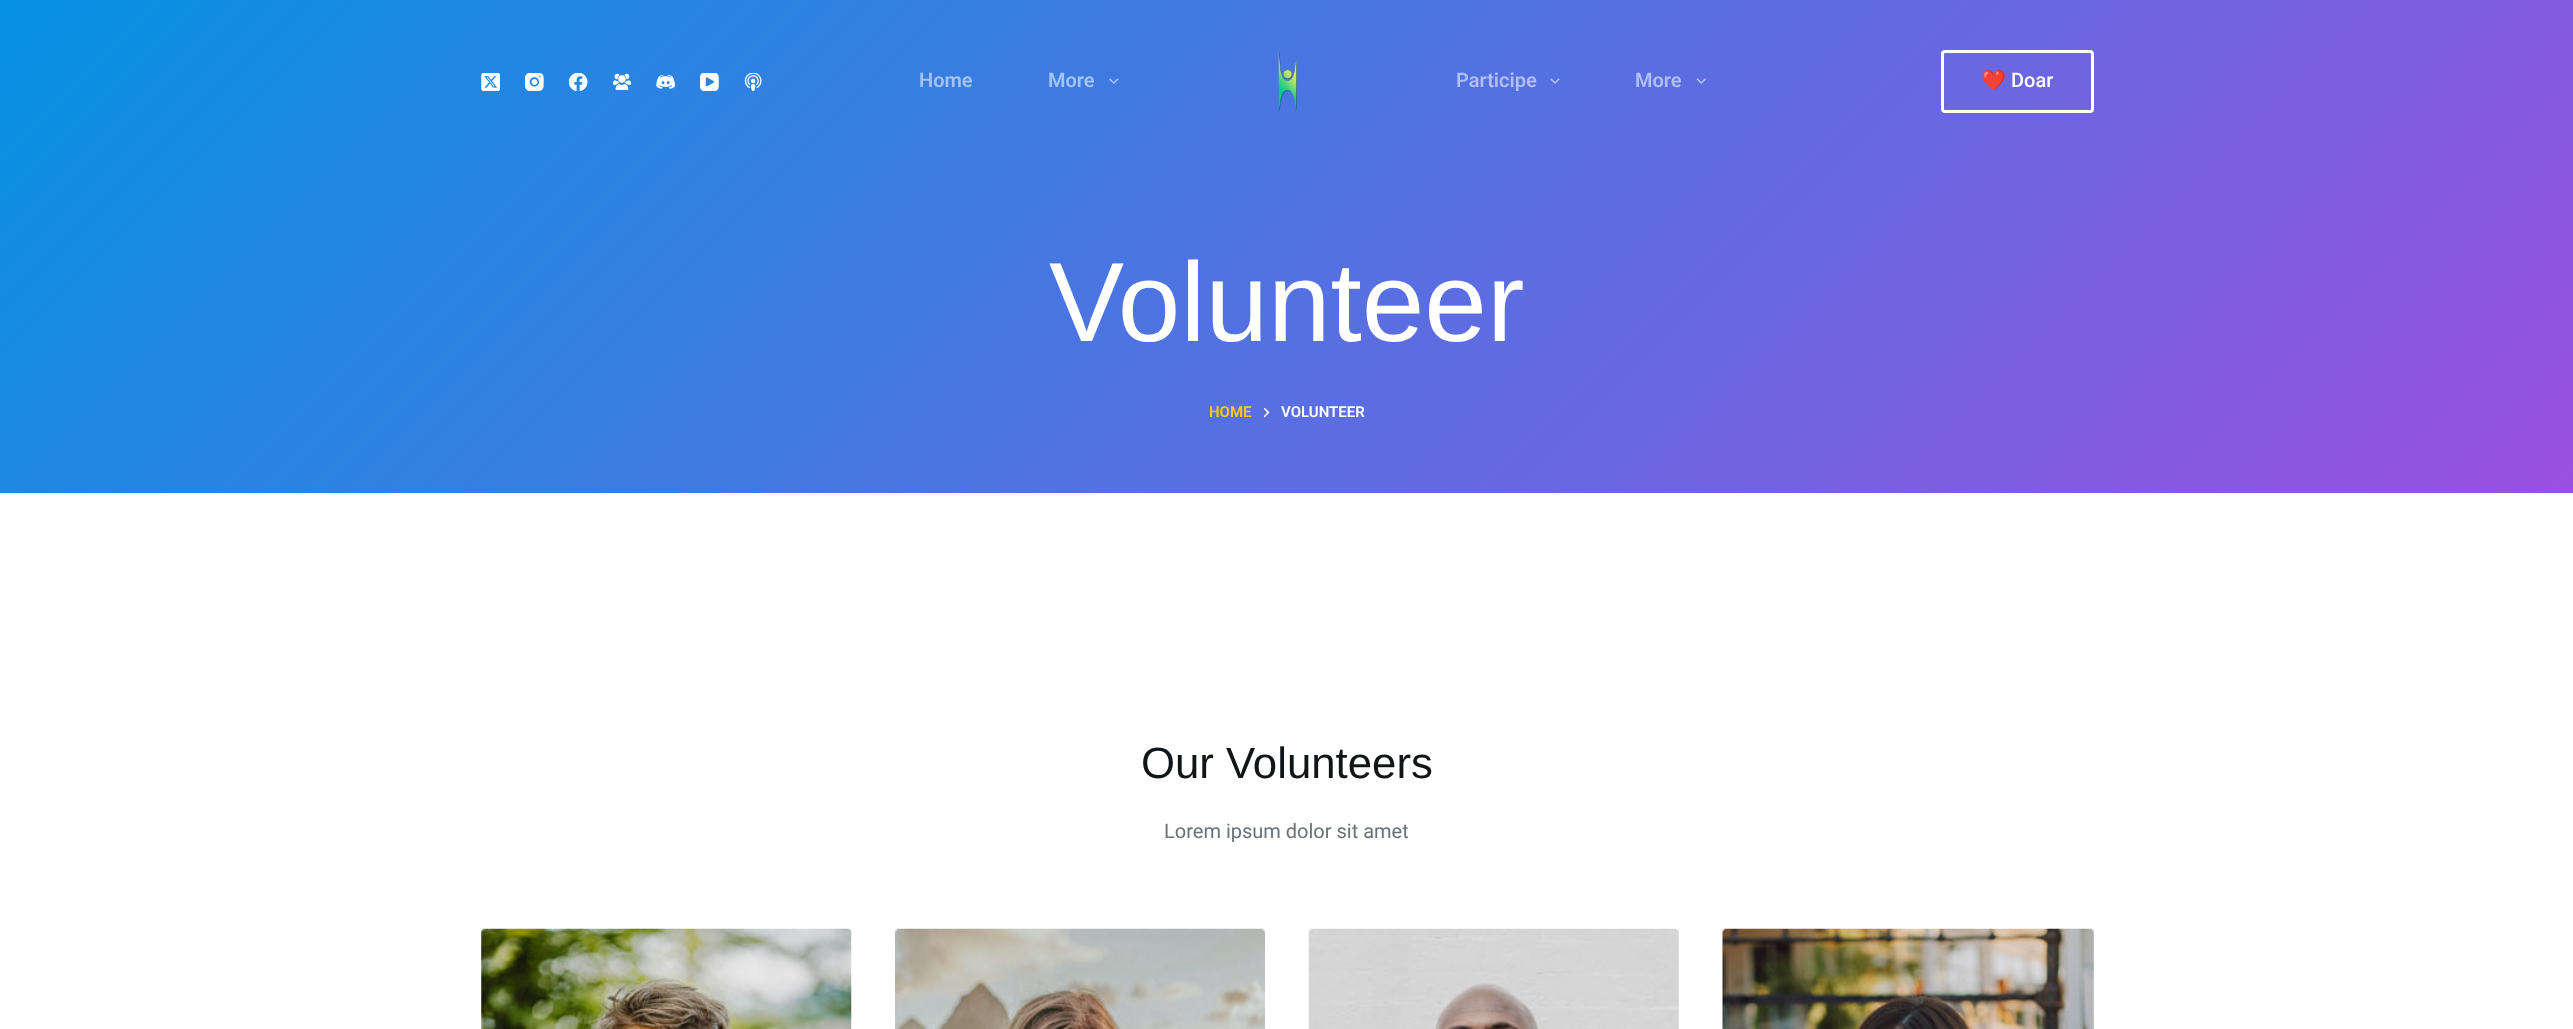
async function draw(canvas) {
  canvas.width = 2573
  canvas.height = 1029
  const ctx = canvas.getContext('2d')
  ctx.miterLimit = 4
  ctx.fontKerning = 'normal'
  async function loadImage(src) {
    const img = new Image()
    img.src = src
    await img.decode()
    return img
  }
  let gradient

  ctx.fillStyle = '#fff'
  ctx.fillRect(0, 0, 2573, 1029)
  gradient = ctx.createLinearGradient(520, -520, 2053, 1013)
  gradient.addColorStop(0, '#0693e3')
  gradient.addColorStop(1, '#9b51e0')
  ctx.fillStyle = gradient
  ctx.fillRect(0, 0, 2573, 493)
  ctx.drawImage(await loadImage('image0.png'), 481, 73, 19, 18)
  ctx.drawImage(await loadImage('image1.png'), 525, 73, 19, 18)
  ctx.drawImage(await loadImage('image2.png'), 569, 73, 19, 18)
  ctx.drawImage(await loadImage('image3.png'), 613, 73, 18, 17)
  ctx.drawImage(await loadImage('image4.png'), 656, 75, 19, 14)
  ctx.drawImage(await loadImage('image5.png'), 700, 73, 19, 18)
  ctx.drawImage(await loadImage('image6.png'), 744, 73, 18, 18)
  ctx.font = '600 20px Roboto'
  ctx.fillStyle = '#a5c4f2'
  ctx.fillText('Home', 919, 87)
  ctx.fillText('More', 1048, 87)
  ctx.drawImage(await loadImage('image7.png'), 1109, 78, 10, 6)
  ctx.drawImage(await loadImage('image8.png'), 1278, 52, 19, 59)
  ctx.fillStyle = '#b1bff2'
  ctx.fillText('Participe', 1456, 87)
  ctx.drawImage(await loadImage('image9.png'), 1550, 78, 10, 6)
  ctx.fillText('More', 1635, 87)
  ctx.drawImage(await loadImage('image10.png'), 1696, 78, 10, 6)
  ctx.beginPath()
  ctx.roundRect(1942.5, 51.5, 150, 60, 2.5)
  ctx.strokeStyle = '#fff'
  ctx.lineWidth = 3
  ctx.stroke()
  ctx.font = '20px Noto Color Emoji'
  ctx.fillStyle = '#fff'
  ctx.fillText('❤️', 1981, 87)
  ctx.font = '500 20px Roboto'
  ctx.fillText('Doar', 2011, 87)
  ctx.font = '112.5px Liberation Sans'
  ctx.fillText('Volunteer', 1049, 341)
  ctx.font = '600 15px Roboto'
  ctx.fillStyle = '#ffcd05'
  ctx.fillText('HOME', 1209, 417)
  ctx.drawImage(await loadImage('image11.png'), 1263, 408, 7, 10)
  ctx.fillStyle = '#fff'
  ctx.fillText('VOLUNTEER', 1281, 417)
  ctx.font = '43.75px Liberation Sans'
  ctx.fillStyle = '#111518'
  ctx.fillText('Our Volunteers', 1141, 778)
  ctx.font = '20px Roboto'
  ctx.fillStyle = '#687279'
  ctx.fillText('Lorem ipsum dolor sit amet', 1164, 838)
  ctx.drawImage(await loadImage('image12.png'), 481, 928, 371, 101)
  ctx.drawImage(await loadImage('image13.png'), 895, 928, 370, 101)
  ctx.drawImage(await loadImage('image14.png'), 1308, 928, 371, 101)
  ctx.drawImage(await loadImage('image15.png'), 1722, 928, 372, 101)
}

draw(document.querySelector('canvas'))
